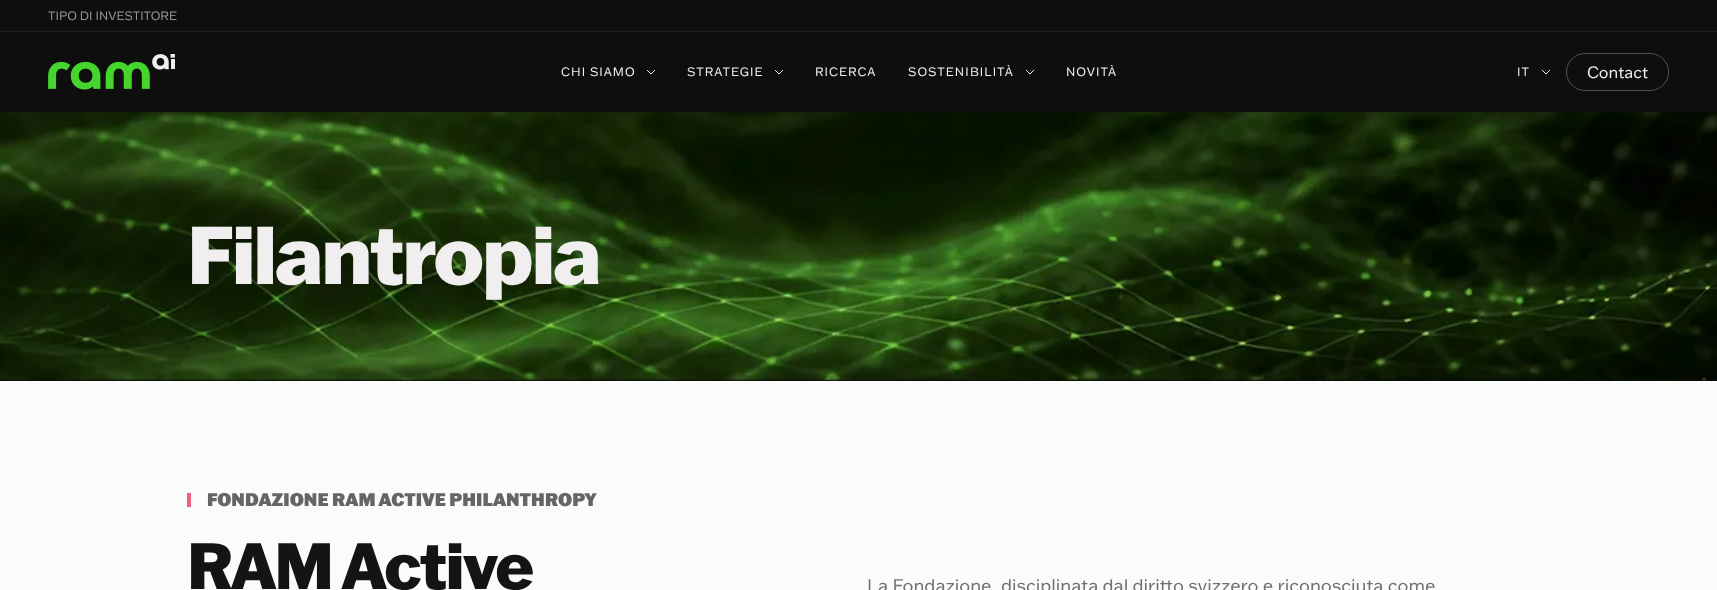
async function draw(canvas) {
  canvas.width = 1717
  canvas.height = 590
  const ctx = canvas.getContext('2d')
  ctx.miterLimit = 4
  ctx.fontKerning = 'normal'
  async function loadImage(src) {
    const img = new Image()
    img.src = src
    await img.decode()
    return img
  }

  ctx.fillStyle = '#fcfbfc'
  ctx.fillRect(0, 0, 1717, 590)
  ctx.fillStyle = '#0f0e0f'
  ctx.fillRect(0, 0, 1717, 31)
  ctx.fillStyle = '#201f20'
  ctx.fillRect(0, 31, 1717, 1)
  ctx.font = '12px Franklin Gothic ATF'
  ctx.fillStyle = '#969495'
  ctx.fillText('TIPO DI INVESTITORE', 48, 20)
  ctx.fillStyle = '#0f0e0f'
  ctx.fillRect(0, 32, 1717, 80)
  ctx.drawImage(await loadImage('image0.png'), 48, 54, 127, 36)
  ctx.letterSpacing = '1px'
  ctx.fillStyle = '#f0eeef'
  ctx.fillText('CHI SIAMO', 561, 76)
  ctx.beginPath()
  ctx.moveTo(647, 70)
  ctx.lineTo(651, 74)
  ctx.lineTo(655, 70)
  ctx.strokeStyle = '#f0eeef'
  ctx.stroke()
  ctx.fillText('STRATEGIE', 687, 76)
  ctx.beginPath()
  ctx.moveTo(775, 70)
  ctx.lineTo(779, 74)
  ctx.lineTo(783, 70)
  ctx.stroke()
  ctx.fillText('RICERCA', 815, 76)
  ctx.fillText('SOSTENIBILITÀ', 908, 76)
  ctx.beginPath()
  ctx.moveTo(1026, 70)
  ctx.lineTo(1030, 74)
  ctx.lineTo(1034, 70)
  ctx.stroke()
  ctx.fillText('NOVITÀ', 1066, 76)
  ctx.fillText('IT', 1517, 76)
  ctx.beginPath()
  ctx.moveTo(1542, 70)
  ctx.lineTo(1546, 74)
  ctx.lineTo(1550, 70)
  ctx.stroke()
  ctx.beginPath()
  ctx.roundRect(1566.5, 53.5, 102, 37, 18.5)
  ctx.strokeStyle = '#554f52'
  ctx.stroke()
  ctx.letterSpacing = '0px'
  ctx.font = '16px Franklin Gothic ATF'
  ctx.fillText('Contact', 1587, 78)
  ctx.fillStyle = '#0f0e0f'
  ctx.fillRect(0, 377, 1717, 4)
  ctx.drawImage(await loadImage('image1.png'), 0, 112, 1717, 269)
  ctx.letterSpacing = '-2.4px'
  ctx.font = '900 80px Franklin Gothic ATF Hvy'
  ctx.fillStyle = '#f0eeef'
  ctx.fillText('Filantropia', 187, 284)
  ctx.fillStyle = '#ef6181'
  ctx.fillRect(187, 493, 4, 14)
  ctx.letterSpacing = '0px'
  ctx.font = '900 18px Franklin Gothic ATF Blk'
  ctx.fillStyle = '#666566'
  ctx.fillText('FONDAZIONE RAM ACTIVE PHILANTHROPY', 207, 506)
  ctx.letterSpacing = '-2px'
  ctx.font = '900 64px Franklin Gothic ATF Hvy'
  ctx.fillStyle = '#151415'
  ctx.fillText('RAM Active', 187, 589)
  ctx.letterSpacing = '0px'
  ctx.font = '18px Franklin Gothic ATF'
  ctx.fillStyle = '#706f70'
  ctx.fillText('La Fondazione, disciplinata dal diritto svizzero e riconosciuta come', 867, 592)
}

draw(document.querySelector('canvas'))
